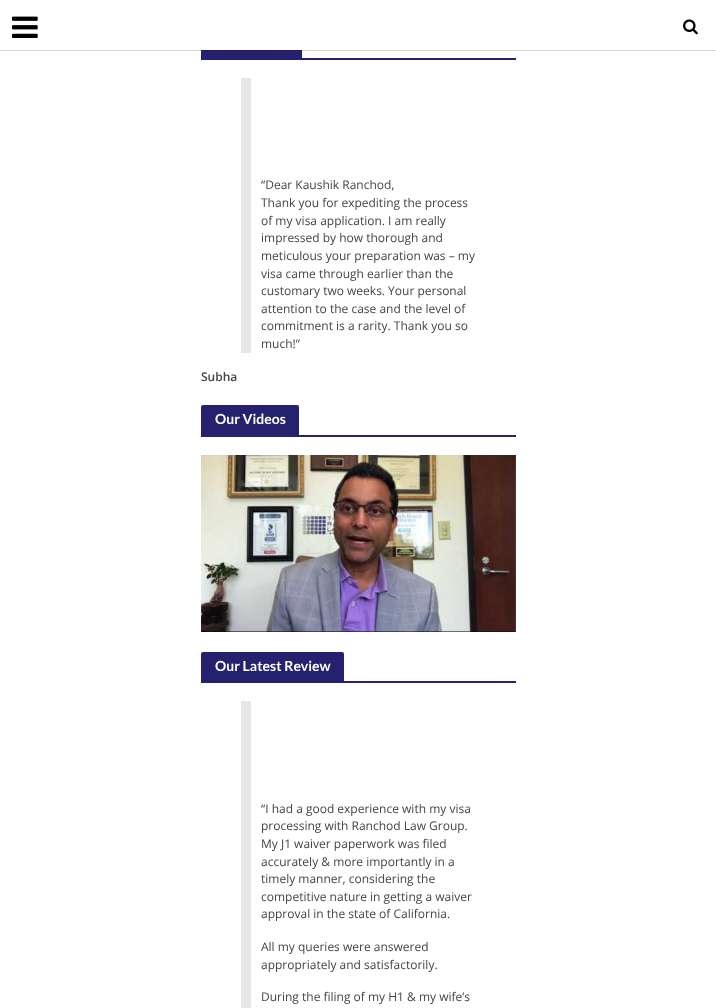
async function draw(canvas) {
  canvas.width = 716
  canvas.height = 1008
  const ctx = canvas.getContext('2d')
  ctx.miterLimit = 4
  ctx.fontKerning = 'normal'
  async function loadImage(src) {
    const img = new Image()
    img.src = src
    await img.decode()
    return img
  }

  ctx.fillStyle = '#fff'
  ctx.fillRect(0, 0, 716, 1008)
  ctx.fillStyle = '#25216e'
  ctx.fillRect(201, 50, 101, 8)
  ctx.fillStyle = '#00000026'
  ctx.beginPath()
  ctx.moveTo(0, -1)
  ctx.lineTo(0, 0)
  ctx.lineTo(716, 0)
  ctx.lineTo(716, 50)
  ctx.lineTo(0, 50)
  ctx.lineTo(0, 51)
  ctx.lineTo(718, 51)
  ctx.lineTo(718, -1)
  ctx.closePath()
  ctx.fill()
  ctx.drawImage(await loadImage('image0.png'), 12, 16, 26, 22)
  ctx.drawImage(await loadImage('image1.png'), 683, 19, 15, 16)
  ctx.fillStyle = '#25216e'
  ctx.fillRect(201, 58, 315, 2)
  ctx.fillStyle = '#e6e6e6'
  ctx.fillRect(241, 78, 10, 275)
  ctx.font = '12px Open Sans'
  ctx.fillStyle = '#444'
  ctx.fillText('“Dear Kaushik Ranchod,', 261, 189)
  ctx.fillText('Thank you for expediting the process', 261, 207)
  ctx.fillText('of my visa application. I am really', 261, 225)
  ctx.fillText('impressed by how thorough and', 261, 242)
  ctx.fillText('meticulous your preparation was – my', 261, 260)
  ctx.fillText('visa came through earlier than the', 261, 278)
  ctx.fillText('customary two weeks. Your personal', 261, 295)
  ctx.fillText('attention to the case and the level of', 261, 313)
  ctx.fillText('commitment is a rarity. Thank you so', 261, 330)
  ctx.fillText('much!”', 261, 348)
  ctx.font = '600 12px Open Sans'
  ctx.fillText('Subha', 201, 381)
  ctx.fillStyle = '#25216e'
  ctx.beginPath()
  ctx.roundRect(201, 405, 98, 30, [2, 2, 0, 0])
  ctx.fill()
  ctx.font = 'bold 14px Lato'
  ctx.fillStyle = '#fff'
  ctx.fillText('Our Videos', 215, 424)
  ctx.fillStyle = '#25216e'
  ctx.fillRect(201, 435, 315, 2)
  ctx.drawImage(await loadImage('image2.png'), 201, 455, 315, 177)
  ctx.beginPath()
  ctx.roundRect(201, 652, 143, 29, [2, 2, 0, 0])
  ctx.fill()
  ctx.fillStyle = '#fff'
  ctx.fillText('Our Latest Review', 215, 671)
  ctx.fillStyle = '#25216e'
  ctx.fillRect(201, 681, 315, 2)
  ctx.fillStyle = '#e6e6e6'
  ctx.fillRect(241, 701, 10, 307)
  ctx.font = '12px Open Sans'
  ctx.fillStyle = '#444'
  ctx.fillText('“I had a good experience with my visa', 261, 813)
  ctx.fillText('processing with Ranchod Law Group.', 261, 830)
  ctx.fillText('My J1 waiver paperwork was filed', 261, 848)
  ctx.fillText('accurately & more importantly in a', 261, 866)
  ctx.fillText('timely manner, considering the', 261, 883)
  ctx.fillText('competitive nature in getting a waiver', 261, 901)
  ctx.fillText('approval in the state of California.', 261, 918)
  ctx.fillText('All my queries were answered', 261, 951)
  ctx.fillText('appropriately and satisfactorily.', 261, 969)
  ctx.fillText('During the filing of my H1 & my wife’s', 261, 1001)
}

draw(document.querySelector('canvas'))
